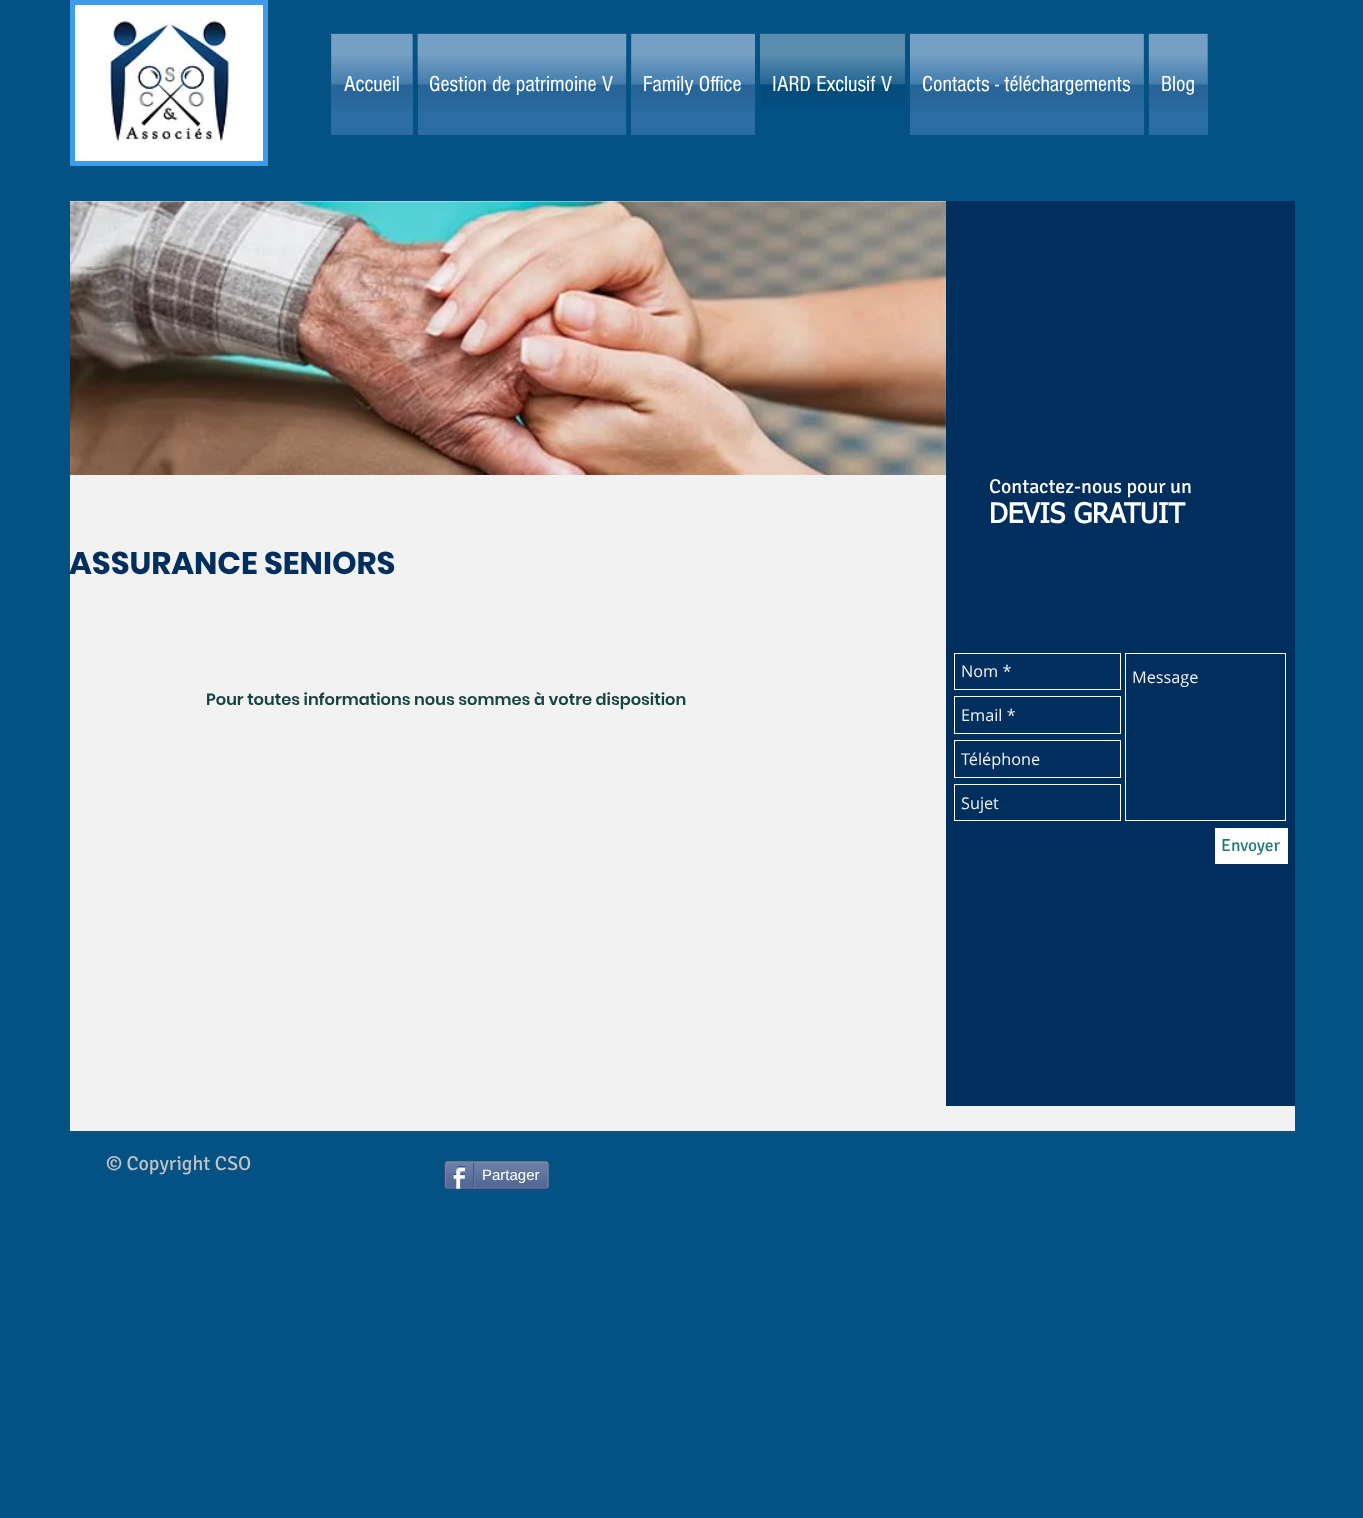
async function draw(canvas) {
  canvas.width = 1363
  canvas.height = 1518
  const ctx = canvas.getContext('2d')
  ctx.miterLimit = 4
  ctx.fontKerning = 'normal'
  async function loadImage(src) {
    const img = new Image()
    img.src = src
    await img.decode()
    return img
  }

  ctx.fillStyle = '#045184'
  ctx.fillRect(0, 0, 1363, 1518)
  ctx.fillStyle = '#fff'
  ctx.beginPath()
  ctx.rect(72.5, 2.5, 193, 161)
  ctx.fill()
  ctx.strokeStyle = '#3d9be9'
  ctx.lineWidth = 5
  ctx.stroke()
  ctx.drawImage(await loadImage('image0.png'), 104, 18, 130, 125)
  ctx.fillStyle = '#2b6ca3'
  ctx.fillRect(331, 34, 82, 101)
  ctx.drawImage(await loadImage('image1.png'), 331, 33, 82, 76)
  ctx.font = '22.5px "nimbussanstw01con"'
  ctx.fillStyle = '#fff'
  ctx.fillText('Accueil', 344, 91)
  ctx.fillStyle = '#2b6ca3'
  ctx.fillRect(418, 34, 208, 101)
  ctx.drawImage(await loadImage('image2.png'), 417, 33, 210, 76)
  ctx.fillStyle = '#fff'
  ctx.fillText('Gestion de patrimoine V', 429, 91)
  ctx.fillStyle = '#2b6ca3'
  ctx.fillRect(631, 34, 124, 101)
  ctx.drawImage(await loadImage('image3.png'), 631, 33, 124, 76)
  ctx.fillStyle = '#fff'
  ctx.fillText('Family Office', 643, 91)
  ctx.drawImage(await loadImage('image4.png'), 760, 33, 145, 73)
  ctx.fillText('IARD Exclusif V', 772, 91)
  ctx.fillStyle = '#2b6ca3'
  ctx.fillRect(910, 34, 234, 101)
  ctx.drawImage(await loadImage('image5.png'), 910, 33, 234, 76)
  ctx.fillStyle = '#fff'
  ctx.fillText('Contacts - téléchargements', 922, 91)
  ctx.fillStyle = '#2b6ca3'
  ctx.fillRect(1149, 34, 59, 101)
  ctx.drawImage(await loadImage('image6.png'), 1148, 33, 60, 76)
  ctx.fillStyle = '#fff'
  ctx.fillText('Blog', 1161, 91)
  ctx.fillStyle = '#f2f2f2'
  ctx.fillRect(70, 201, 1225, 930)
  ctx.drawImage(await loadImage('image7.png'), 70, 201, 876, 274)
  ctx.font = 'bold 31.25px Poppins'
  ctx.fillStyle = '#002e5d'
  ctx.fillText('ASSURANCE SENIORS', 69, 574)
  ctx.fillRect(946, 201, 349, 905)
  ctx.font = '20px Signika'
  ctx.fillStyle = '#fff'
  ctx.fillText('Contactez-nous pour un', 989, 493)
  ctx.font = 'bold 27.5px tahoma'
  ctx.fillText('DEVIS GRATUIT', 989, 523)
  ctx.strokeStyle = '#fff'
  ctx.lineWidth = 1
  ctx.strokeRect(954.5, 653.5, 166, 36)
  ctx.font = '16.25px Open Sans'
  ctx.fillStyle = '#f2f2f2'
  ctx.fillText('Nom *', 961, 677)
  ctx.strokeRect(1125.5, 653.5, 160, 167)
  ctx.fillText('Message', 1132, 683)
  ctx.strokeRect(954.5, 696.5, 166, 37)
  ctx.fillText('Email *', 961, 721)
  ctx.strokeRect(954.5, 740.5, 166, 37)
  ctx.fillText('Téléphone', 961, 765)
  ctx.strokeRect(954.5, 784.5, 166, 36)
  ctx.fillText('Sujet', 961, 809)
  ctx.fillStyle = '#fff'
  ctx.fillRect(1215, 828, 73, 36)
  ctx.font = '17.5px Signika'
  ctx.fillStyle = '#257874'
  ctx.fillText('Envoyer', 1221, 851)
  ctx.font = '600 16.25px Poppins'
  ctx.fillStyle = '#164442'
  ctx.fillText('Pour toutes informations nous sommes à votre disposition', 206, 705)
  ctx.font = '20px Signika'
  ctx.fillStyle = '#c3c2c2'
  ctx.fillText('© Copyright CSO', 106, 1170)
  ctx.beginPath()
  ctx.roundRect(444.5, 1160.5, 105, 29, 3.5)
  ctx.strokeStyle = '#2d4565'
  ctx.stroke()
  ctx.drawImage(await loadImage('image8.png'), 445, 1162, 104, 27)
  ctx.beginPath()
  ctx.moveTo(446, 1162.5)
  ctx.lineTo(447.5, 1162)
  ctx.lineTo(530, 1162)
  ctx.lineTo(546, 1162)
  ctx.lineTo(547.5, 1162.5)
  ctx.strokeStyle = '#9aabc6'
  ctx.lineWidth = 1.2
  ctx.stroke()
  ctx.beginPath()
  ctx.moveTo(547.5, 1162.5)
  ctx.lineTo(548, 1164)
  ctx.lineTo(548, 1186)
  ctx.lineTo(547.5, 1187.5)
  ctx.strokeStyle = '#6f83ad'
  ctx.stroke()
  ctx.beginPath()
  ctx.moveTo(547.5, 1187.5)
  ctx.lineTo(546.5, 1188)
  ctx.lineTo(464, 1188)
  ctx.lineTo(447.5, 1188)
  ctx.lineTo(446, 1187.5)
  ctx.strokeStyle = '#6176a3'
  ctx.stroke()
  ctx.beginPath()
  ctx.moveTo(446, 1187.5)
  ctx.lineTo(445.5, 1186)
  ctx.lineTo(445.5, 1164)
  ctx.lineTo(446, 1162.5)
  ctx.strokeStyle = '#6f83ad'
  ctx.stroke()
  ctx.drawImage(await loadImage('image9.png'), 452, 1166, 13, 23)
  ctx.fillStyle = '#425e85'
  ctx.fillRect(473, 1163, 1, 26)
  ctx.font = '15px Liberation Sans'
  ctx.fillStyle = '#fff'
  ctx.fillText('Partager', 482, 1180)
  ctx.fillStyle = '#6176a3'
  ctx.fillRect(474, 1163, 1, 25)
}

draw(document.querySelector('canvas'))
